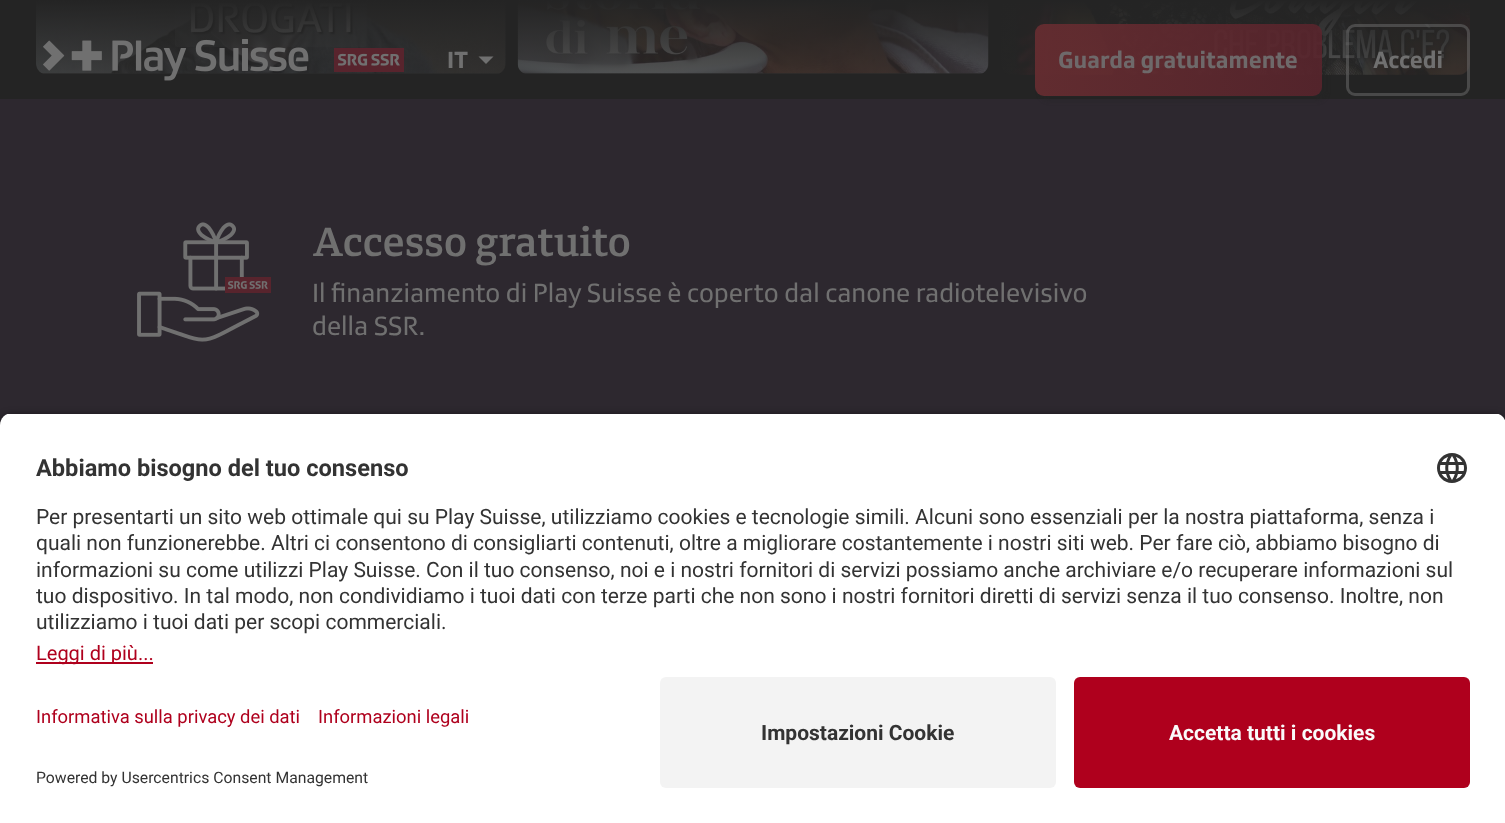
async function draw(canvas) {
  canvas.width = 1505
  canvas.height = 823
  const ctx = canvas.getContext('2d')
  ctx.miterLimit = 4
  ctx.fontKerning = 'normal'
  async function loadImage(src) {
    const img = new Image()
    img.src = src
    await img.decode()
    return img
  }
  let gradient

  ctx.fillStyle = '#242424'
  ctx.fillRect(0, 0, 1505, 823)
  ctx.save()
  ctx.beginPath()
  ctx.roundRect(36, -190, 470, 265, 12)
  ctx.clip()
  ctx.fillStyle = '#2c2c2c'
  ctx.beginPath()
  ctx.moveTo(48, -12)
  ctx.lineTo(494, -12)
  ctx.bezierCurveTo(500.5, -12, 506, -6.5, 506, 0)
  ctx.lineTo(506, 74)
  ctx.lineTo(36, 74)
  ctx.lineTo(36, 0)
  ctx.bezierCurveTo(36, -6.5, 41.5, -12, 48, -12)
  ctx.closePath()
  ctx.fill()
  ctx.restore()
  ctx.drawImage(await loadImage('image1.png'), 36, 1, 470, 73)
  ctx.save()
  ctx.beginPath()
  ctx.roundRect(518, -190, 471, 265, 12)
  ctx.clip()
  ctx.fillStyle = '#2c2c2c'
  ctx.beginPath()
  ctx.moveTo(530, -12)
  ctx.lineTo(977, -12)
  ctx.bezierCurveTo(983.5, -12, 989, -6.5, 989, 0)
  ctx.lineTo(989, 74)
  ctx.lineTo(518, 74)
  ctx.lineTo(518, 0)
  ctx.bezierCurveTo(518, -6.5, 523.5, -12, 530, -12)
  ctx.closePath()
  ctx.fill()
  ctx.restore()
  ctx.drawImage(await loadImage('image2.png'), 517, 1, 472, 73)
  ctx.drawImage(await loadImage('image3.png'), 1001, 1, 469, 74)
  gradient = ctx.createLinearGradient(753, 0, 753, 120)
  gradient.addColorStop(0, '#242424')
  gradient.addColorStop(1, '#24242400')
  ctx.fillStyle = gradient
  ctx.fillRect(36, 0, 1434, 75)
  ctx.drawImage(await loadImage('image0.png'), 43, 39, 361, 42)
  ctx.font = 'bold 24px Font'
  ctx.fillStyle = '#707070'
  ctx.fillText('IT', 447, 68)
  ctx.beginPath()
  ctx.moveTo(486, 64)
  ctx.lineTo(478.5, 56.5)
  ctx.lineTo(493.5, 56.5)
  ctx.closePath()
  ctx.fill()
  ctx.fillStyle = '#2d282f'
  ctx.fillRect(0, 99, 1505, 326)
  ctx.save()
  ctx.beginPath()
  ctx.moveTo(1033, 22)
  ctx.lineTo(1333, 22)
  ctx.lineTo(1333, 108)
  ctx.lineTo(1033, 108)
  ctx.closePath()
  ctx.moveTo(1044, 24)
  ctx.lineTo(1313, 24)
  ctx.bezierCurveTo(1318, 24, 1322, 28, 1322, 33)
  ctx.lineTo(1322, 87)
  ctx.bezierCurveTo(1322, 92, 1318, 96, 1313, 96)
  ctx.lineTo(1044, 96)
  ctx.bezierCurveTo(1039, 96, 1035, 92, 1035, 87)
  ctx.lineTo(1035, 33)
  ctx.bezierCurveTo(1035, 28, 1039, 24, 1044, 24)
  ctx.closePath()
  ctx.clip('evenodd')
  ctx.fillStyle = '#2424245c'
  ctx.filter = 'blur(2px)'
  ctx.beginPath()
  ctx.roundRect(1040, 29, 286, 72, 9)
  ctx.fill()
  ctx.filter = 'none'
  ctx.restore()
  gradient = ctx.createLinearGradient(1035, 60, 1322, 60)
  gradient.addColorStop(0, '#682d31e6')
  gradient.addColorStop(1, '#58242ce6')
  ctx.fillStyle = gradient
  ctx.beginPath()
  ctx.roundRect(1035, 24, 287, 72, 9)
  ctx.fill()
  ctx.fillStyle = '#6e696a'
  ctx.fillText('Guarda gratuitamente', 1058, 68)
  ctx.fillStyle = '#24242433'
  ctx.beginPath()
  ctx.roundRect(1346, 24, 124, 72, 9)
  ctx.fill()
  ctx.beginPath()
  ctx.roundRect(1347.5, 25.5, 121, 69, 7.5)
  ctx.strokeStyle = '#70707080'
  ctx.lineWidth = 3
  ctx.stroke()
  ctx.fillStyle = '#707070'
  ctx.fillText('Accedi', 1373, 68)
  ctx.drawImage(await loadImage('image4.png'), 137, 222, 134, 120)
  ctx.font = '500 42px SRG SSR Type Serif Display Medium'
  ctx.fillText('Accesso gratuito', 312, 256)
  ctx.font = '27px Font'
  ctx.fillText('Il finanziamento di Play Suisse è coperto dal canone radiotelevisivo', 312, 302)
  ctx.fillText('della SSR.', 312, 335)
  ctx.fillStyle = '#000000cc'
  ctx.filter = 'blur(5px)'
  ctx.beginPath()
  ctx.roundRect(0, 417, 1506, 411, 12)
  ctx.fill()
  ctx.filter = 'none'
  ctx.save()
  ctx.beginPath()
  ctx.moveTo(12, 413)
  ctx.lineTo(1494, 413)
  ctx.bezierCurveTo(1500.5, 413, 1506, 418.5, 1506, 425)
  ctx.lineTo(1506, 665)
  ctx.lineTo(0, 665)
  ctx.lineTo(0, 425)
  ctx.bezierCurveTo(0, 418.5, 5.5, 413, 12, 413)
  ctx.closePath()
  ctx.clip()
  ctx.fillStyle = '#fff'
  ctx.fillRect(0, 414, 1505, 251)
  ctx.restore()
  ctx.font = 'bold 23.6px Roboto'
  ctx.fillStyle = '#333'
  ctx.fillText('Abbiamo bisogno del tuo consenso', 36, 476)
  ctx.drawImage(await loadImage('image5.png'), 1437, 453, 30, 30)
  ctx.font = '21px Roboto'
  ctx.fillText('Per presentarti un sito web ottimale qui su Play Suisse, utilizziamo cookies e tecnologie simili. Alcuni sono essenziali per la nostra piattaforma, senza i', 36, 524)
  ctx.fillText('quali non funzionerebbe. Altri ci consentono di consigliarti contenuti, oltre a migliorare costantemente i nostri siti web. Per fare ciò, abbiamo bisogno di', 36, 550)
  ctx.fillText('informazioni su come utilizzi Play Suisse. Con il tuo consenso, noi e i nostri fornitori di servizi possiamo anche archiviare e/o recuperare informazioni sul', 36, 577)
  ctx.fillText('tuo dispositivo. In tal modo, non condividiamo i tuoi dati con terze parti che non sono i nostri fornitori diretti di servizi senza il tuo consenso. Inoltre, non', 36, 603)
  ctx.fillText('utilizziamo i tuoi dati per scopi commerciali.', 36, 629)
  ctx.fillStyle = '#af001d'
  ctx.fillRect(36, 662, 117, 2)
  ctx.font = '20px Roboto'
  ctx.fillText('Leggi di più...', 36, 660)
  ctx.fillStyle = '#fff'
  ctx.fillRect(0, 665, 1505, 158)
  ctx.font = '18.4px Roboto'
  ctx.fillStyle = '#af001d'
  ctx.fillText('Informativa sulla privacy dei dati', 36, 723)
  ctx.fillText('Informazioni legali', 318, 723)
  ctx.font = '15.75px Roboto'
  ctx.fillStyle = '#333'
  ctx.fillText('Powered by Usercentrics Consent Management', 36, 783)
  ctx.fillStyle = '#f3f3f3'
  ctx.beginPath()
  ctx.roundRect(660, 677, 396, 111, 6)
  ctx.fill()
  ctx.font = 'bold 21px Roboto'
  ctx.fillStyle = '#333'
  ctx.fillText('Impostazioni Cookie', 761, 740)
  ctx.fillStyle = '#af001d'
  ctx.beginPath()
  ctx.roundRect(1074, 677, 396, 111, 6)
  ctx.fill()
  ctx.fillStyle = '#fafafa'
  ctx.fillText('Accetta tutti i cookies', 1169, 740)
}

draw(document.querySelector('canvas'))
